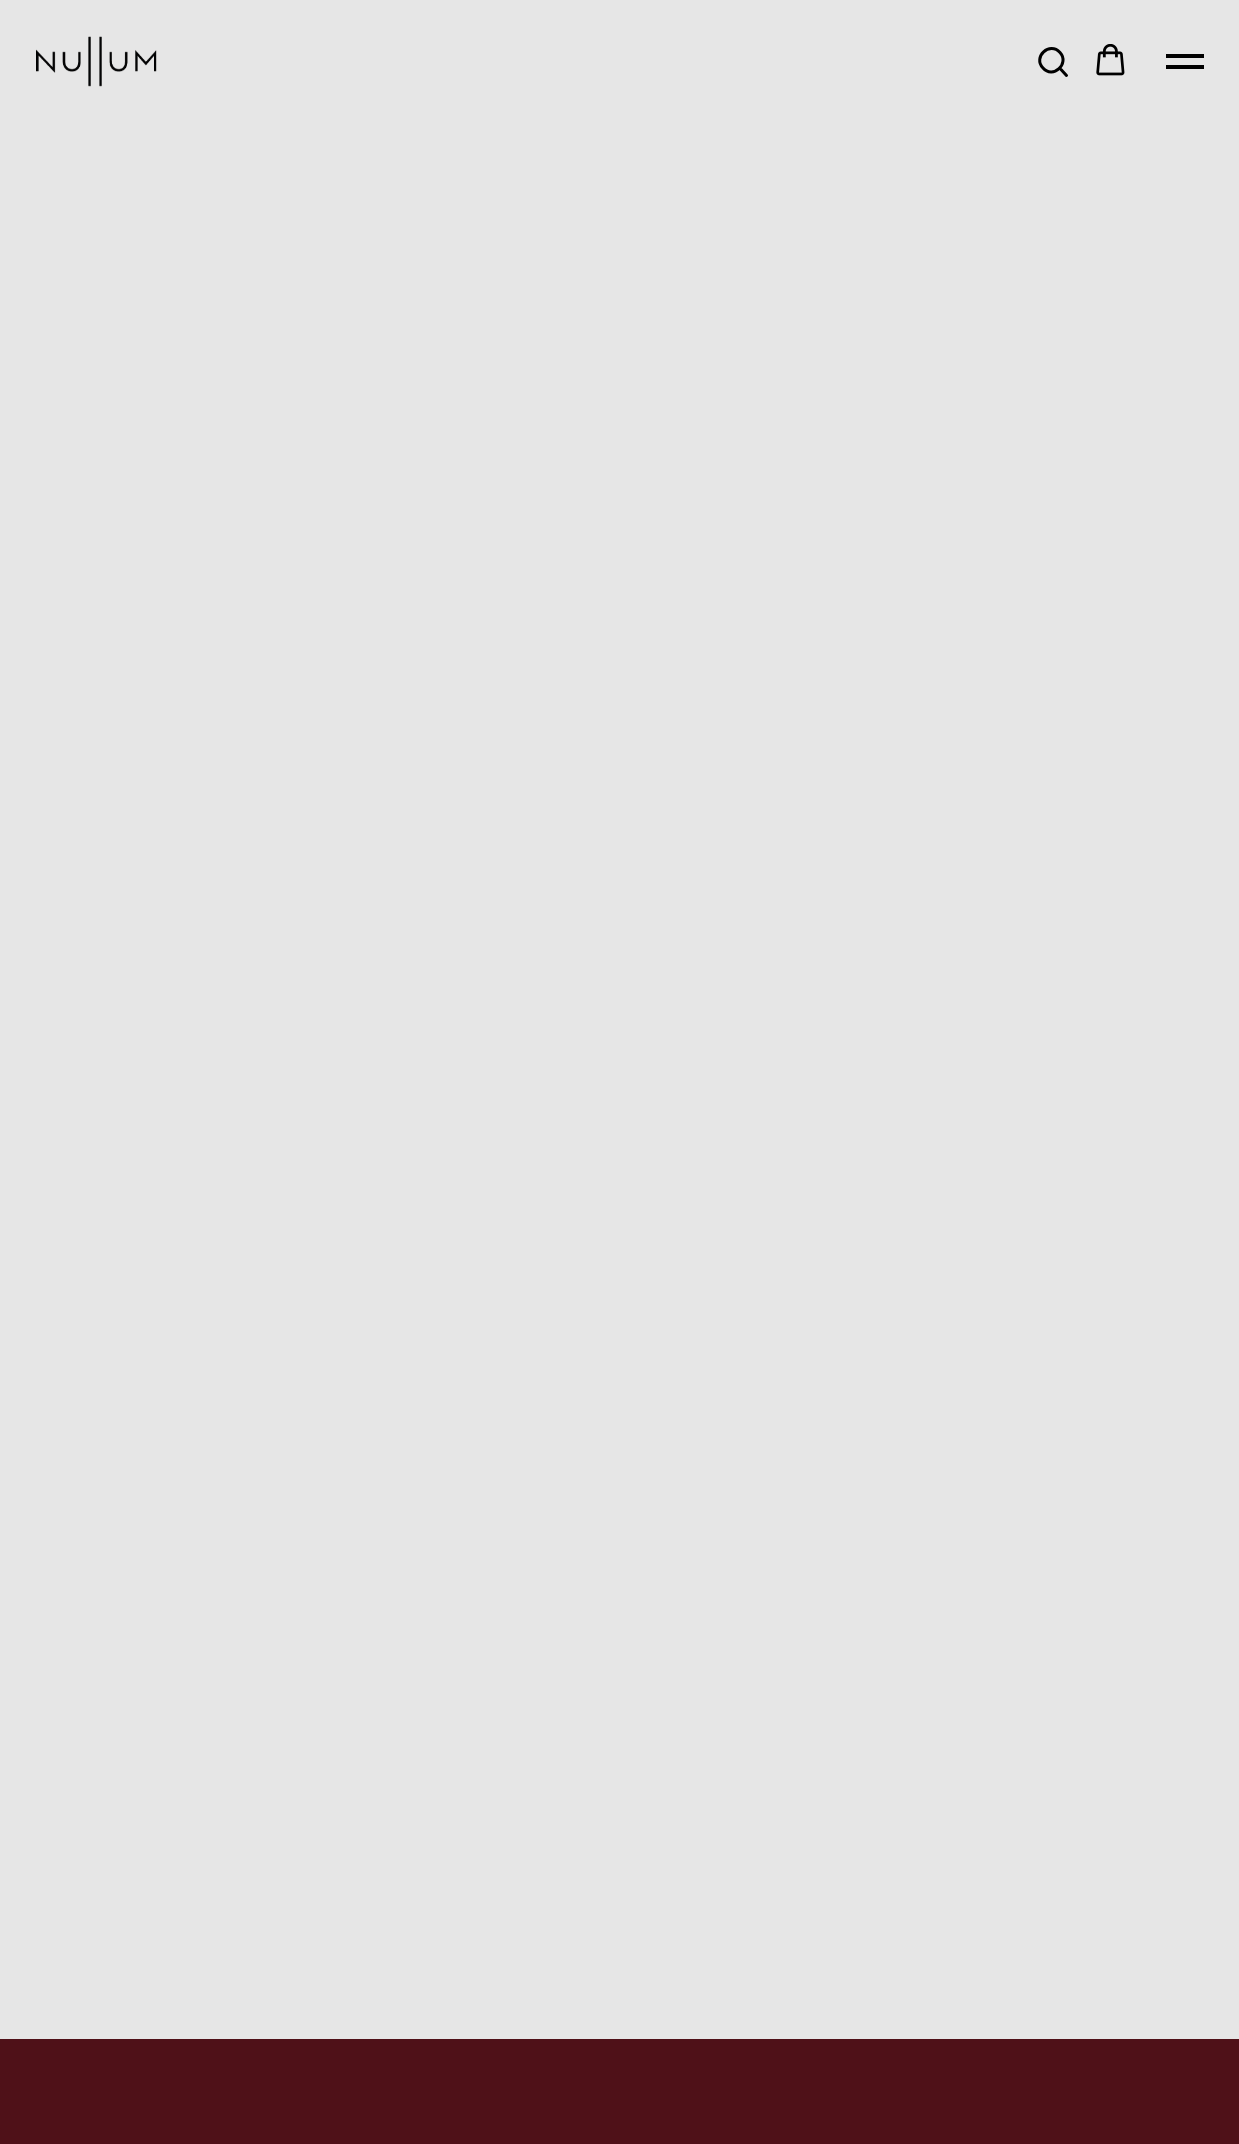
async function draw(canvas) {
  canvas.width = 1239
  canvas.height = 2144
  const ctx = canvas.getContext('2d')
  ctx.miterLimit = 4
  ctx.fontKerning = 'normal'
  async function loadImage(src) {
    const img = new Image()
    img.src = src
    await img.decode()
    return img
  }

  ctx.fillStyle = '#e6e6e6'
  ctx.fillRect(0, 0, 1239, 2144)
  ctx.drawImage(await loadImage('image0.png'), 36, 36, 121, 51)
  ctx.beginPath()
  ctx.moveTo(1060, 52.5)
  ctx.bezierCurveTo(1070, 63.5, 1053, 79.5, 1043, 68)
  ctx.bezierCurveTo(1032.5, 57, 1049.5, 41, 1060, 52.5)
  ctx.closePath()
  ctx.strokeStyle = '#000'
  ctx.lineWidth = 3
  ctx.stroke()
  ctx.beginPath()
  ctx.moveTo(1061, 69.5)
  ctx.lineTo(1066.5, 75.5)
  ctx.lineCap = 'round'
  ctx.stroke()
  ctx.drawImage(await loadImage('image1.png'), 1096, 44, 29, 32)
  ctx.fillStyle = '#000'
  ctx.fillRect(1166, 54, 38, 4)
  ctx.fillRect(1166, 65, 38, 4)
  ctx.fillStyle = '#4f1118'
  ctx.fillRect(0, 2039, 1239, 105)
}

draw(document.querySelector('canvas'))
